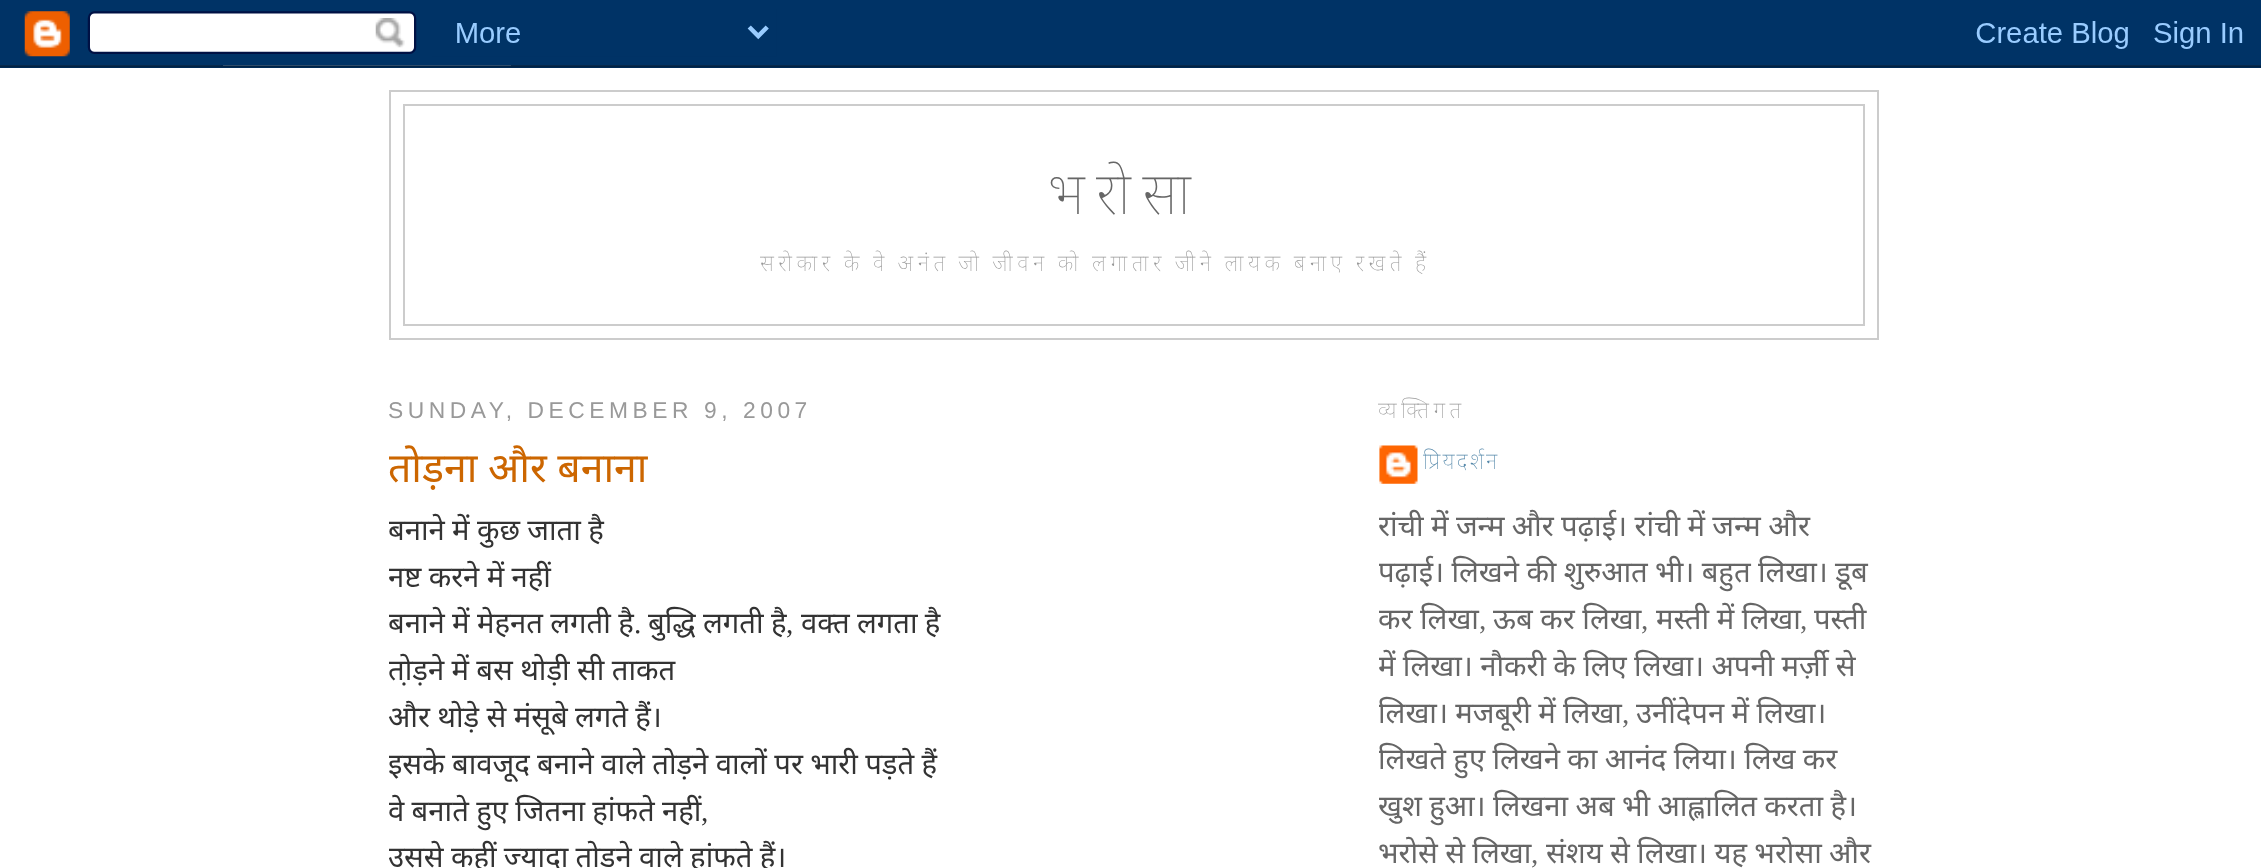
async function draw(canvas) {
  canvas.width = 2261
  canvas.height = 868
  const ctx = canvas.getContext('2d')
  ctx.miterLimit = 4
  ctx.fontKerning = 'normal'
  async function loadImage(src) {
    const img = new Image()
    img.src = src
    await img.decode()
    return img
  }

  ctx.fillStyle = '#fff'
  ctx.fillRect(0, 0, 2261, 868)
  ctx.drawImage(await loadImage('image0.png'), 0, 0, 2261, 68)
  ctx.strokeStyle = '#ccc'
  ctx.lineWidth = 2
  ctx.strokeRect(390, 91, 1488, 248)
  ctx.strokeRect(404, 105, 1460, 220)
  ctx.letterSpacing = '11.5px'
  ctx.font = '100 58.5px Noto Sans'
  ctx.fillStyle = '#666'
  ctx.fillText('भरोसा', 1048, 214)
  ctx.letterSpacing = '4.55px'
  ctx.wordSpacing = '-1.4px'
  ctx.font = '100 22.8px Noto Sans'
  ctx.fillStyle = '#999'
  ctx.fillText('सरोकार के वे अनंत जो जीवन को लगातार जीने लायक बनाए रखते हैं', 760, 271)
  ctx.wordSpacing = '0px'
  ctx.font = '22.8px Liberation Sans'
  ctx.fillText('SUNDAY, DECEMBER 9, 2007', 388, 418)
  ctx.save()
  ctx.beginPath()
  ctx.rect(389, 362, 923, 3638)
  ctx.clip()
  ctx.letterSpacing = '0px'
  ctx.font = '41px Noto Sans'
  ctx.fillStyle = '#c60'
  ctx.fillText('तोड़ना और बनाना', 388, 482)
  ctx.wordSpacing = '-0.25px'
  ctx.font = '29.25px Noto Sans'
  ctx.fillStyle = '#333'
  ctx.fillText('बनाने में कुछ जाता है', 388, 540)
  ctx.fillText('नष्ट करने में नहीं', 388, 587)
  ctx.fillText('बनाने में मेहनत लगती है', 388, 633)
  ctx.restore()
  ctx.letterSpacing = '0px'
  ctx.font = '29.25px Liberation Serif'
  ctx.fillStyle = '#333'
  ctx.fillText('.', 634, 633)
  ctx.wordSpacing = '-0.25px'
  ctx.font = '29.25px Noto Sans'
  ctx.fillText('बुद्धि लगती है', 648, 633)
  ctx.fillText('वक्त लगता है', 801, 633)
  ctx.wordSpacing = '0px'
  ctx.font = '29.25px Liberation Serif'
  ctx.fillText(',', 786, 633)
  ctx.save()
  ctx.beginPath()
  ctx.rect(389, 362, 923, 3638)
  ctx.clip()
  ctx.wordSpacing = '-0.25px'
  ctx.font = '29.25px Noto Sans'
  ctx.fillText('तो़ड़ने में बस थोड़ी सी ताकत', 388, 680)
  ctx.restore()
  ctx.wordSpacing = '-0.25px'
  ctx.font = '29.25px Noto Sans'
  ctx.fillText('और थोड़े से मंसूबे लगते हैं।', 388, 727)
  ctx.save()
  ctx.beginPath()
  ctx.rect(389, 362, 923, 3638)
  ctx.clip()
  ctx.fillText('इसके बावजूद बनाने वाले तोड़ने वालों पर भारी पड़ते हैं', 388, 774)
  ctx.fillText('वे बनाते हुए जितना हांफते नहीं', 388, 821)
  ctx.restore()
  ctx.wordSpacing = '0px'
  ctx.font = '29.25px Liberation Serif'
  ctx.fillText(',', 701, 821)
  ctx.save()
  ctx.beginPath()
  ctx.rect(389, 362, 923, 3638)
  ctx.clip()
  ctx.wordSpacing = '-0.25px'
  ctx.font = '29.25px Noto Sans'
  ctx.fillText('उससे कहीं ज्यादा तोड़ने वाले हांफते हैं।', 388, 867)
  ctx.restore()
  ctx.letterSpacing = '4.55px'
  ctx.font = '100 22.8px Noto Sans'
  ctx.fillStyle = '#999'
  ctx.fillText('व्यक्तिगत', 1378, 418)
  ctx.drawImage(await loadImage('image1.png'), 1379, 445, 39, 39)
  ctx.letterSpacing = '2.25px'
  ctx.fillStyle = '#58a'
  ctx.fillText('प्रियदर्शन', 1423, 469)
  ctx.save()
  ctx.beginPath()
  ctx.rect(1379, 362, 495, 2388)
  ctx.clip()
  ctx.letterSpacing = '0px'
  ctx.wordSpacing = '-0.25px'
  ctx.font = '29.25px Noto Sans'
  ctx.fillStyle = '#666'
  ctx.fillText('रांची में जन्म और पढ़ाई। रांची में जन्म और', 1378, 536)
  ctx.fillText('पढ़ाई। लिखने की शुरुआत भी। बहुत लिखा। डूब', 1378, 582)
  ctx.wordSpacing = '0px'
  ctx.fillText('कर लिखा', 1378, 629)
  ctx.restore()
  ctx.letterSpacing = '0px'
  ctx.font = '29.25px Liberation Serif'
  ctx.fillStyle = '#666'
  ctx.fillText(',', 1479, 629)
  ctx.font = '29.25px Noto Sans'
  ctx.fillText('ऊब कर लिखा', 1493, 629)
  ctx.font = '29.25px Liberation Serif'
  ctx.fillText(',', 1641, 629)
  ctx.font = '29.25px Noto Sans'
  ctx.fillText('मस्ती में लिखा', 1656, 629)
  ctx.font = '29.25px Liberation Serif'
  ctx.fillText(',', 1800, 629)
  ctx.font = '29.25px Noto Sans'
  ctx.fillText('पस्ती', 1814, 629)
  ctx.save()
  ctx.beginPath()
  ctx.rect(1379, 362, 495, 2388)
  ctx.clip()
  ctx.wordSpacing = '-0.25px'
  ctx.fillText('में लिखा। नौकरी के लिए लिखा। अपनी मर्ज़ी से', 1378, 676)
  ctx.fillText('लिखा। मजबूरी में लिखा', 1378, 723)
  ctx.restore()
  ctx.font = '29.25px Liberation Serif'
  ctx.fillText(',', 1622, 723)
  ctx.wordSpacing = '-0.25px'
  ctx.font = '29.25px Noto Sans'
  ctx.fillText('उनींदेपन में लिखा।', 1636, 723)
  ctx.save()
  ctx.beginPath()
  ctx.rect(1379, 362, 495, 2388)
  ctx.clip()
  ctx.fillText('लिखते हुए लिखने का आनंद लिया। लिख कर', 1378, 769)
  ctx.fillText('खुश हुआ। लिखना अब भी आह्लालित करता है।', 1378, 816)
  ctx.restore()
  ctx.fillText('भरोसे से लिखा', 1378, 863)
  ctx.wordSpacing = '0px'
  ctx.font = '29.25px Liberation Serif'
  ctx.fillText(',', 1531, 863)
  ctx.wordSpacing = '-0.25px'
  ctx.font = '29.25px Noto Sans'
  ctx.fillText('संशय से लिखा। यह भरोसा और', 1546, 863)
}

draw(document.querySelector('canvas'))
